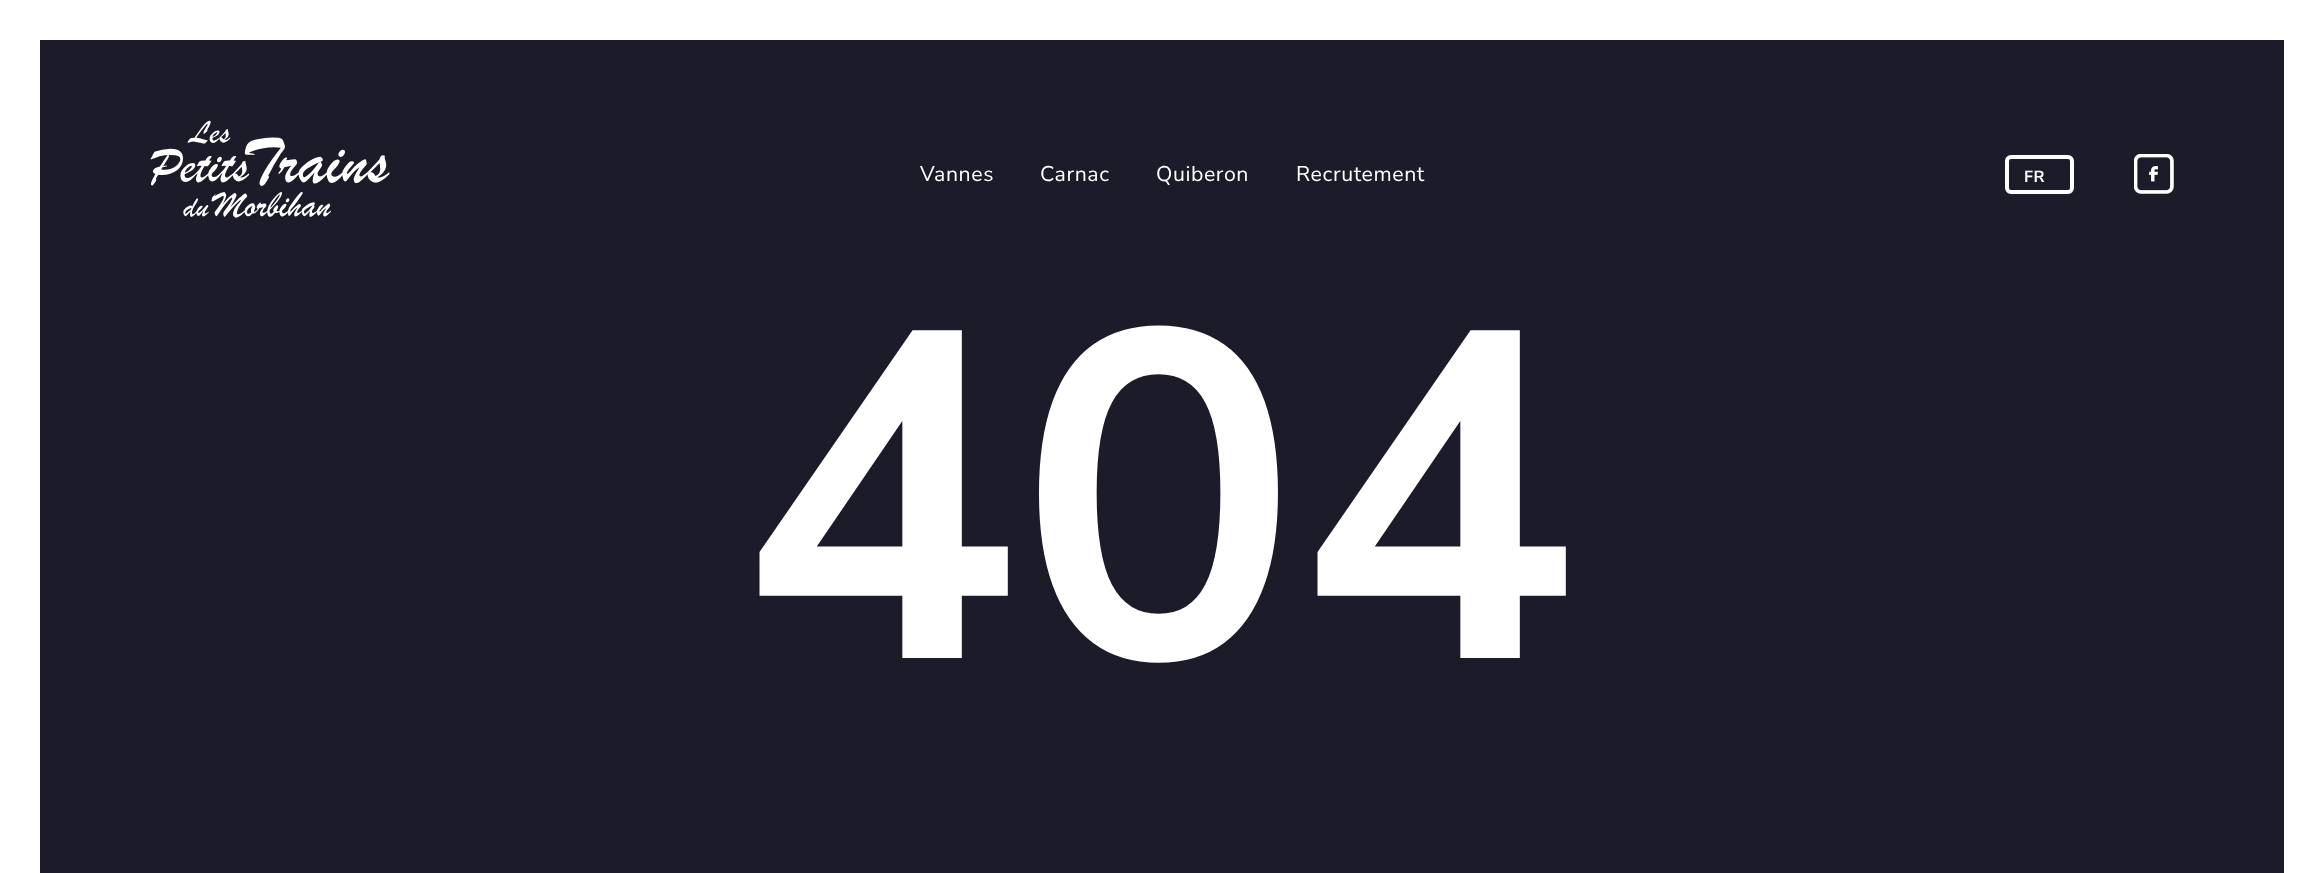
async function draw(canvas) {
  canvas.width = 2323
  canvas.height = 873
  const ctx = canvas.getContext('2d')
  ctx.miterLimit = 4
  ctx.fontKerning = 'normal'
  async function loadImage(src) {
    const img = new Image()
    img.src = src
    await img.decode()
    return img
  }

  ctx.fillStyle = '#fff'
  ctx.fillRect(0, 0, 2323, 873)
  ctx.fillStyle = '#1c1b29'
  ctx.fillRect(40, 40, 2244, 833)
  ctx.drawImage(await loadImage('image0.png'), 150, 120, 240, 98)
  ctx.letterSpacing = '0.6px'
  ctx.font = '21.25px Nunito Sans'
  ctx.fillStyle = '#fff'
  ctx.fillText('Vannes', 920, 181)
  ctx.fillText('Carnac', 1040, 181)
  ctx.fillText('Quiberon', 1156, 181)
  ctx.fillText('Recrutement', 1296, 181)
  ctx.beginPath()
  ctx.roundRect(2007, 157, 65, 35, 4)
  ctx.strokeStyle = '#fff'
  ctx.lineWidth = 4
  ctx.stroke()
  ctx.font = 'bold 16px Nunito Sans'
  ctx.fillText('FR', 2024, 182)
  ctx.drawImage(await loadImage('image1.png'), 2134, 154, 40, 40)
  ctx.letterSpacing = '0px'
  ctx.font = 'bold 465px Nunito Sans'
  ctx.fillText('404', 740, 658)
}

draw(document.querySelector('canvas'))
